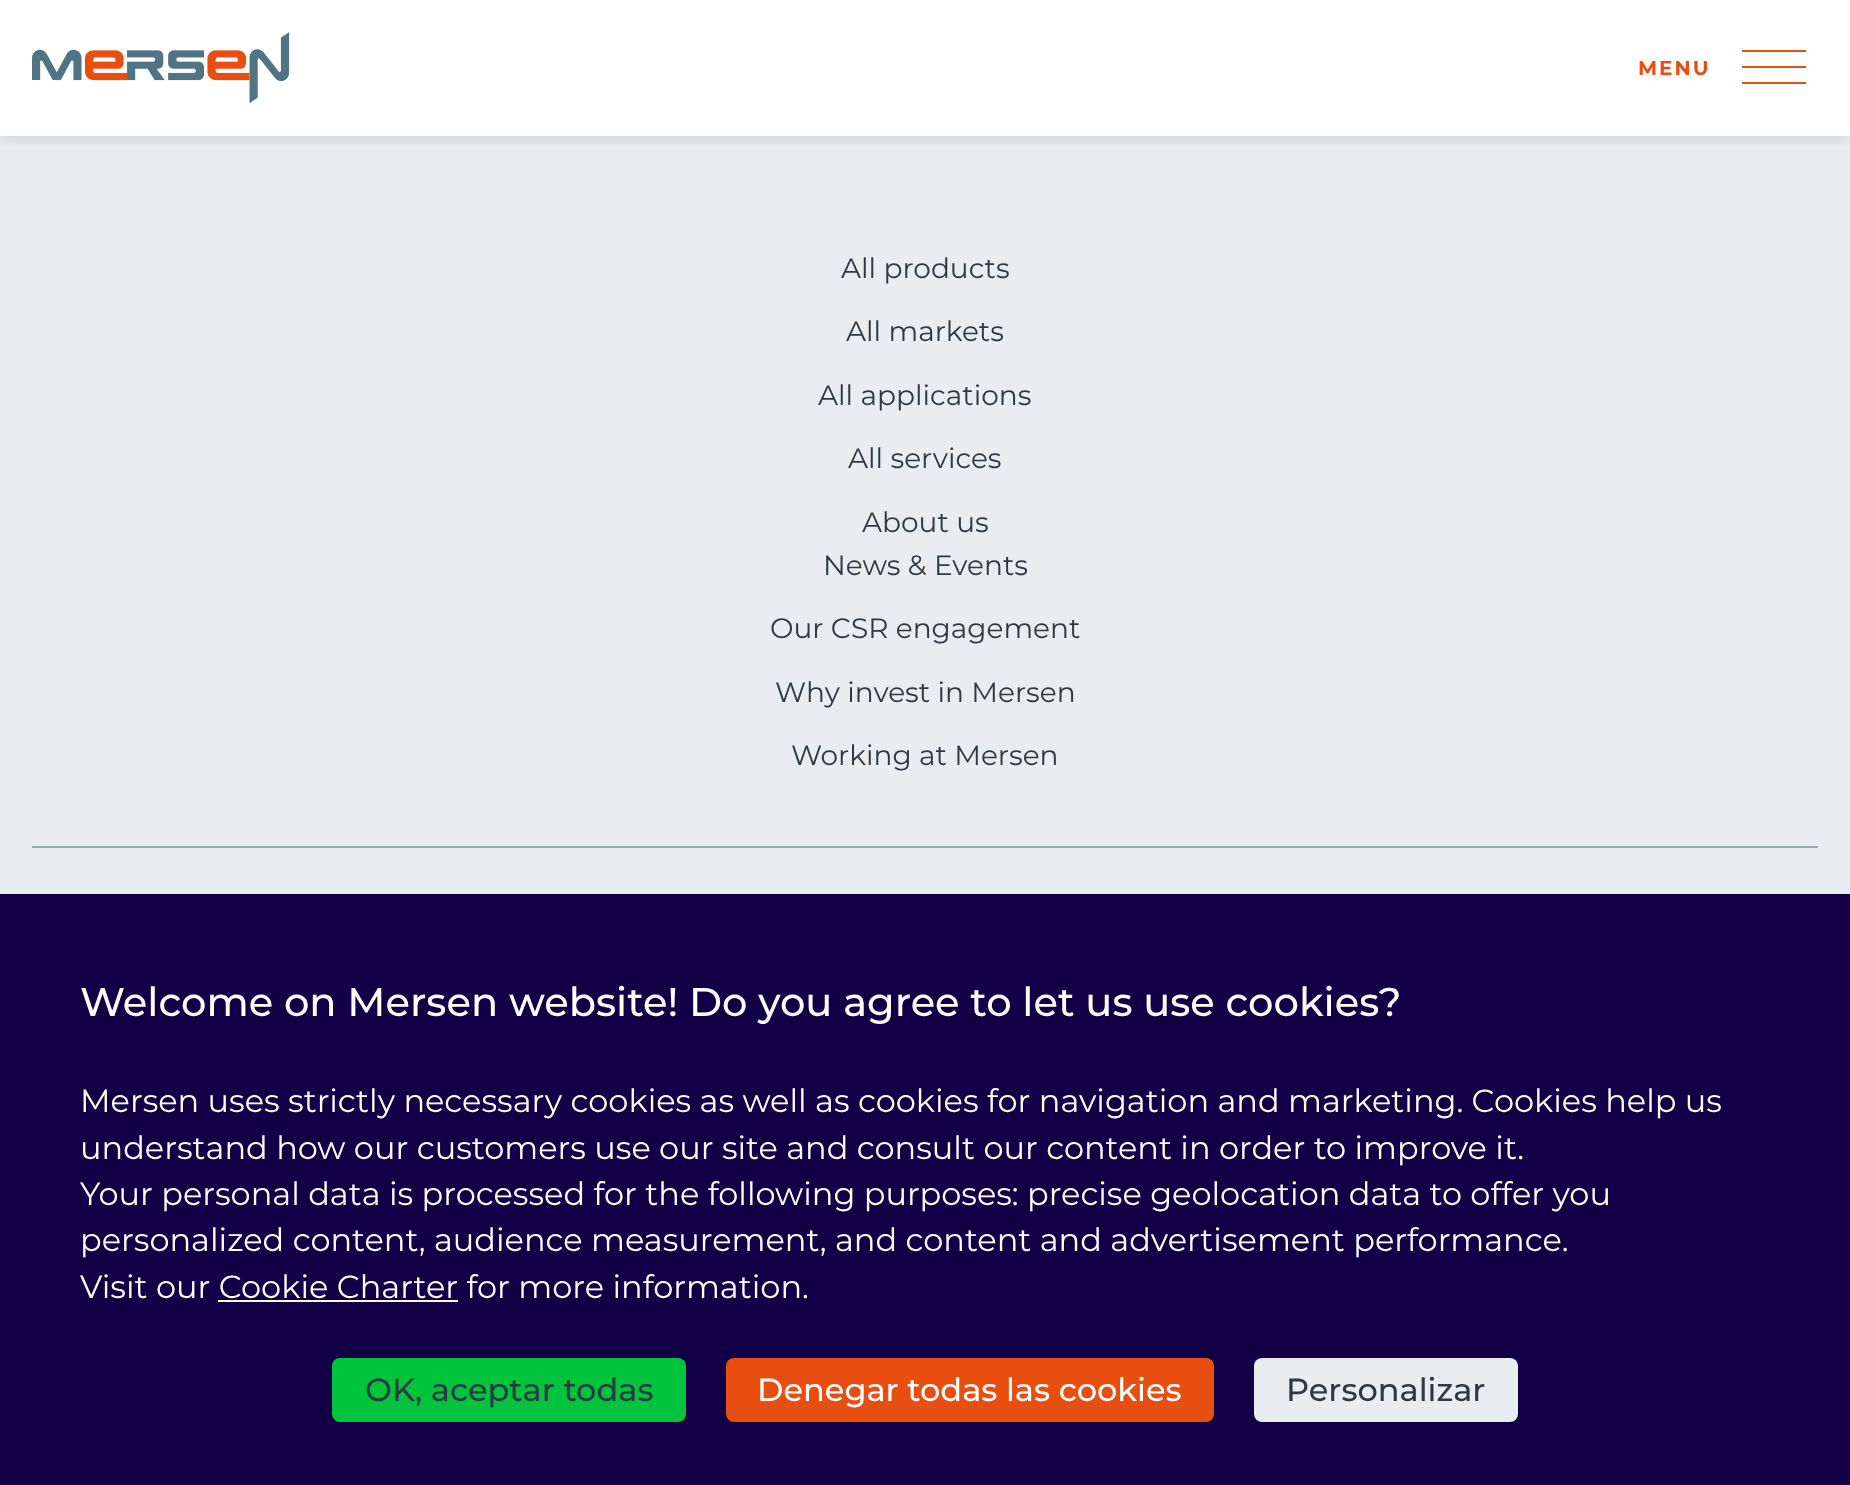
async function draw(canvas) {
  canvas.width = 1850
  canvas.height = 1485
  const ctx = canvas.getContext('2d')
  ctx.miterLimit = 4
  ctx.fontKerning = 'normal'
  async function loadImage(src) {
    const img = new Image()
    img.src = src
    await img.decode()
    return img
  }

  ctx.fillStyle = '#fff'
  ctx.fillRect(0, 0, 1850, 1485)
  ctx.fillStyle = '#eaedef'
  ctx.fillRect(0, 136, 1850, 758)
  ctx.save()
  ctx.beginPath()
  ctx.rect(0, 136, 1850, 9)
  ctx.clip()
  ctx.fillStyle = '#00000026'
  ctx.filter = 'blur(8px)'
  ctx.beginPath()
  ctx.rect(0, 0, 1850, 136)
  ctx.fill()
  ctx.filter = 'none'
  ctx.restore()
  ctx.drawImage(await loadImage('image0.png'), 32, 32, 258, 71)
  ctx.letterSpacing = '2px'
  ctx.font = '100 20px "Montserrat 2"'
  ctx.fillStyle = '#e84e0f'
  ctx.fillText('MENU', 1638, 75)
  ctx.fillRect(1742, 50, 64, 2)
  ctx.fillRect(1742, 66, 64, 2)
  ctx.fillRect(1742, 82, 64, 2)
  ctx.fillStyle = '#96a9b1'
  ctx.fillRect(32, 846, 1786, 2)
  ctx.letterSpacing = '0px'
  ctx.font = '100 28px Montserrat'
  ctx.fillStyle = '#2c3a43'
  ctx.fillText('All products', 841, 278)
  ctx.fillText('All markets', 846, 341)
  ctx.fillText('All applications', 818, 405)
  ctx.fillText('All services', 848, 468)
  ctx.fillText('About us', 862, 532)
  ctx.fillText('News & Events', 823, 575)
  ctx.fillText('Our CSR engagement', 770, 638)
  ctx.fillText('Why invest in Mersen', 775, 702)
  ctx.fillText('Working at Mersen', 791, 765)
  ctx.fillStyle = '#120047'
  ctx.fillRect(0, 894, 1850, 591)
  ctx.font = '100 40px "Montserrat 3"'
  ctx.fillStyle = '#fff'
  ctx.fillText('Welcome on Mersen website! Do you agree to let us use cookies?', 80, 1016)
  ctx.font = '100 32px Montserrat'
  ctx.fillText('Mersen uses strictly necessary cookies as well as cookies for navigation and marketing. Cookies help us', 80, 1112)
  ctx.fillText('understand how our customers use our site and consult our content in order to improve it.', 80, 1159)
  ctx.fillText('Your personal data is processed for the following purposes: precise geolocation data to offer you', 80, 1205)
  ctx.fillText('personalized content, audience measurement, and content and advertisement performance.', 80, 1251)
  ctx.fillText('Visit our Cookie Charter for more information.', 80, 1298)
  ctx.fillRect(218, 1300, 240, 2)
  ctx.fillStyle = '#00c43c'
  ctx.beginPath()
  ctx.roundRect(332, 1358, 354, 64, 8)
  ctx.fill()
  ctx.font = '100 32px "Montserrat 3"'
  ctx.fillStyle = '#2c3a43'
  ctx.fillText('OK, aceptar todas', 365, 1401)
  ctx.fillStyle = '#e84e0f'
  ctx.beginPath()
  ctx.roundRect(726, 1358, 488, 64, 8)
  ctx.fill()
  ctx.fillStyle = '#fff'
  ctx.fillText('Denegar todas las cookies', 757, 1401)
  ctx.fillStyle = '#eaedef'
  ctx.beginPath()
  ctx.roundRect(1254, 1358, 264, 64, 8)
  ctx.fill()
  ctx.fillStyle = '#2c3a43'
  ctx.fillText('Personalizar', 1286, 1401)
}

draw(document.querySelector('canvas'))
